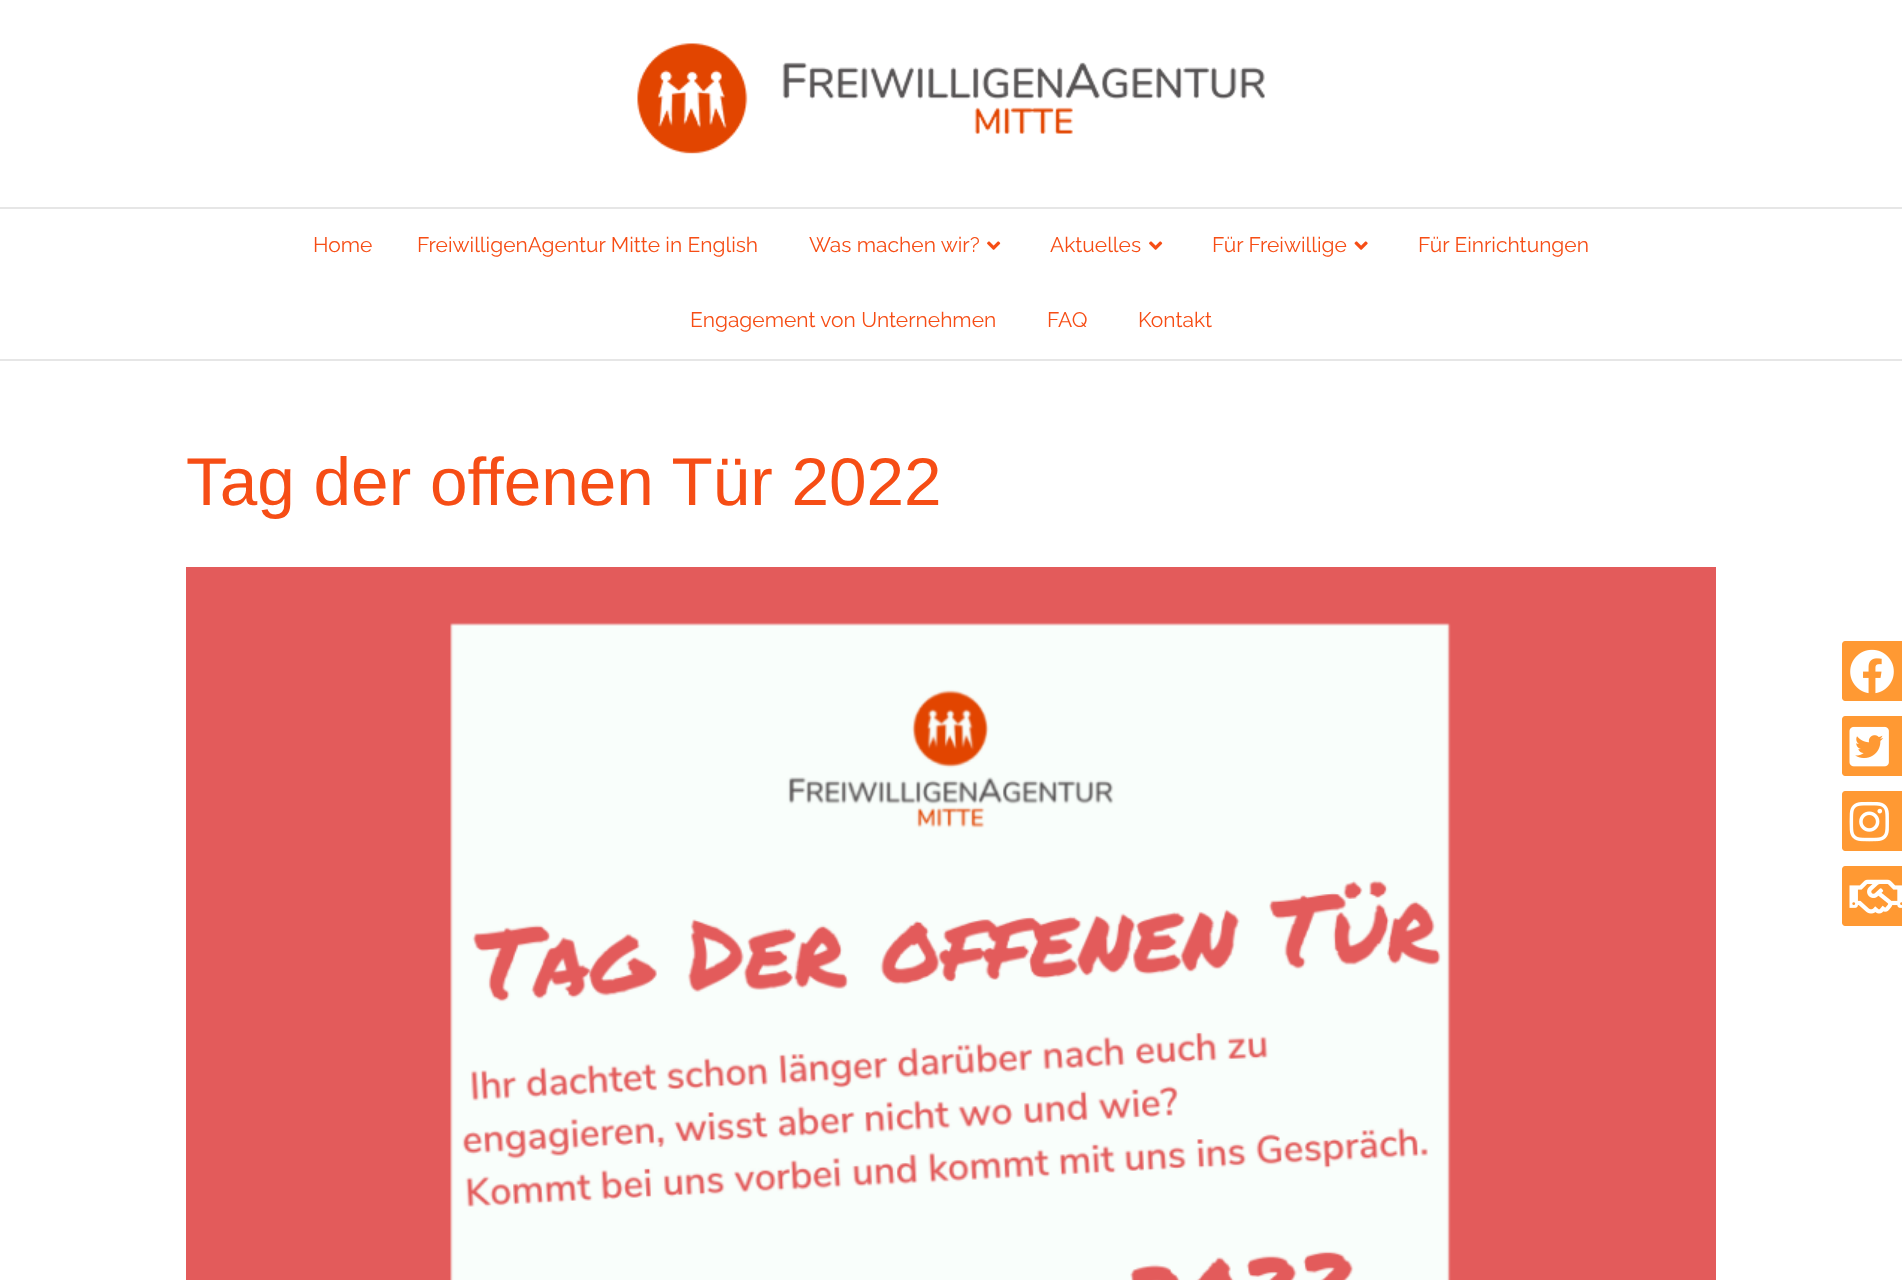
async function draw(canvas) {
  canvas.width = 1902
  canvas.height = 1280
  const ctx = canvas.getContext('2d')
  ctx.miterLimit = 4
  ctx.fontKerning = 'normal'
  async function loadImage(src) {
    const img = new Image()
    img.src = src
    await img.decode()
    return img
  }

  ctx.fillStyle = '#fff'
  ctx.fillRect(0, 0, 1902, 1280)
  ctx.drawImage(await loadImage('image0.png'), 637, 43, 628, 111)
  ctx.fillStyle = '#e6e6e6'
  ctx.fillRect(0, 207, 1902, 2)
  ctx.fillRect(0, 359, 1902, 2)
  ctx.font = '21px Raleway'
  ctx.fillStyle = '#f64d15'
  ctx.fillText('Home', 313, 252)
  ctx.fillText('FreiwilligenAgentur Mitte in English', 417, 252)
  ctx.fillText('Was machen wir?', 809, 252)
  ctx.drawImage(await loadImage('image1.png'), 987, 241, 14, 9)
  ctx.fillText('Aktuelles', 1050, 252)
  ctx.drawImage(await loadImage('image1.png'), 1149, 241, 14, 9)
  ctx.fillText('Für Freiwillige', 1212, 252)
  ctx.drawImage(await loadImage('image2.png'), 1354, 241, 14, 9)
  ctx.fillText('Für Einrichtungen', 1418, 252)
  ctx.fillText('Engagement von Unternehmen', 690, 327)
  ctx.fillText('FAQ', 1047, 327)
  ctx.fillText('Kontakt', 1138, 327)
  ctx.font = '67.5px Liberation Sans'
  ctx.fillText('Tag der offenen Tür 2022', 186, 505)
  ctx.drawImage(await loadImage('image3.png'), 186, 567, 1530, 713)
  ctx.fillStyle = '#f93'
  ctx.beginPath()
  ctx.moveTo(1845, 641)
  ctx.lineTo(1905, 641)
  ctx.lineTo(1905, 701)
  ctx.lineTo(1845, 701)
  ctx.bezierCurveTo(1843.5, 701, 1842, 699.5, 1842, 698)
  ctx.lineTo(1842, 644)
  ctx.bezierCurveTo(1842, 642.5, 1843.5, 641, 1845, 641)
  ctx.closePath()
  ctx.fill()
  ctx.drawImage(await loadImage('image4.png'), 1850, 649, 44, 45)
  ctx.beginPath()
  ctx.moveTo(1845, 716)
  ctx.lineTo(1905, 716)
  ctx.lineTo(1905, 776)
  ctx.lineTo(1845, 776)
  ctx.bezierCurveTo(1843.5, 776, 1842, 774.5, 1842, 773)
  ctx.lineTo(1842, 719)
  ctx.bezierCurveTo(1842, 717.5, 1843.5, 716, 1845, 716)
  ctx.closePath()
  ctx.fill()
  ctx.drawImage(await loadImage('image5.png'), 1849, 726, 40, 41)
  ctx.beginPath()
  ctx.moveTo(1845, 791)
  ctx.lineTo(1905, 791)
  ctx.lineTo(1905, 851)
  ctx.lineTo(1845, 851)
  ctx.bezierCurveTo(1843.5, 851, 1842, 849.5, 1842, 848)
  ctx.lineTo(1842, 794)
  ctx.bezierCurveTo(1842, 792.5, 1843.5, 791, 1845, 791)
  ctx.closePath()
  ctx.fill()
  ctx.drawImage(await loadImage('image6.png'), 1849, 801, 40, 41)
  ctx.beginPath()
  ctx.moveTo(1845, 866)
  ctx.lineTo(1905, 866)
  ctx.lineTo(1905, 926)
  ctx.lineTo(1845, 926)
  ctx.bezierCurveTo(1843.5, 926, 1842, 924.5, 1842, 923)
  ctx.lineTo(1842, 869)
  ctx.bezierCurveTo(1842, 867.5, 1843.5, 866, 1845, 866)
  ctx.closePath()
  ctx.fill()
  ctx.drawImage(await loadImage('image7.png'), 1849, 879, 53, 35)
}

draw(document.querySelector('canvas'))
